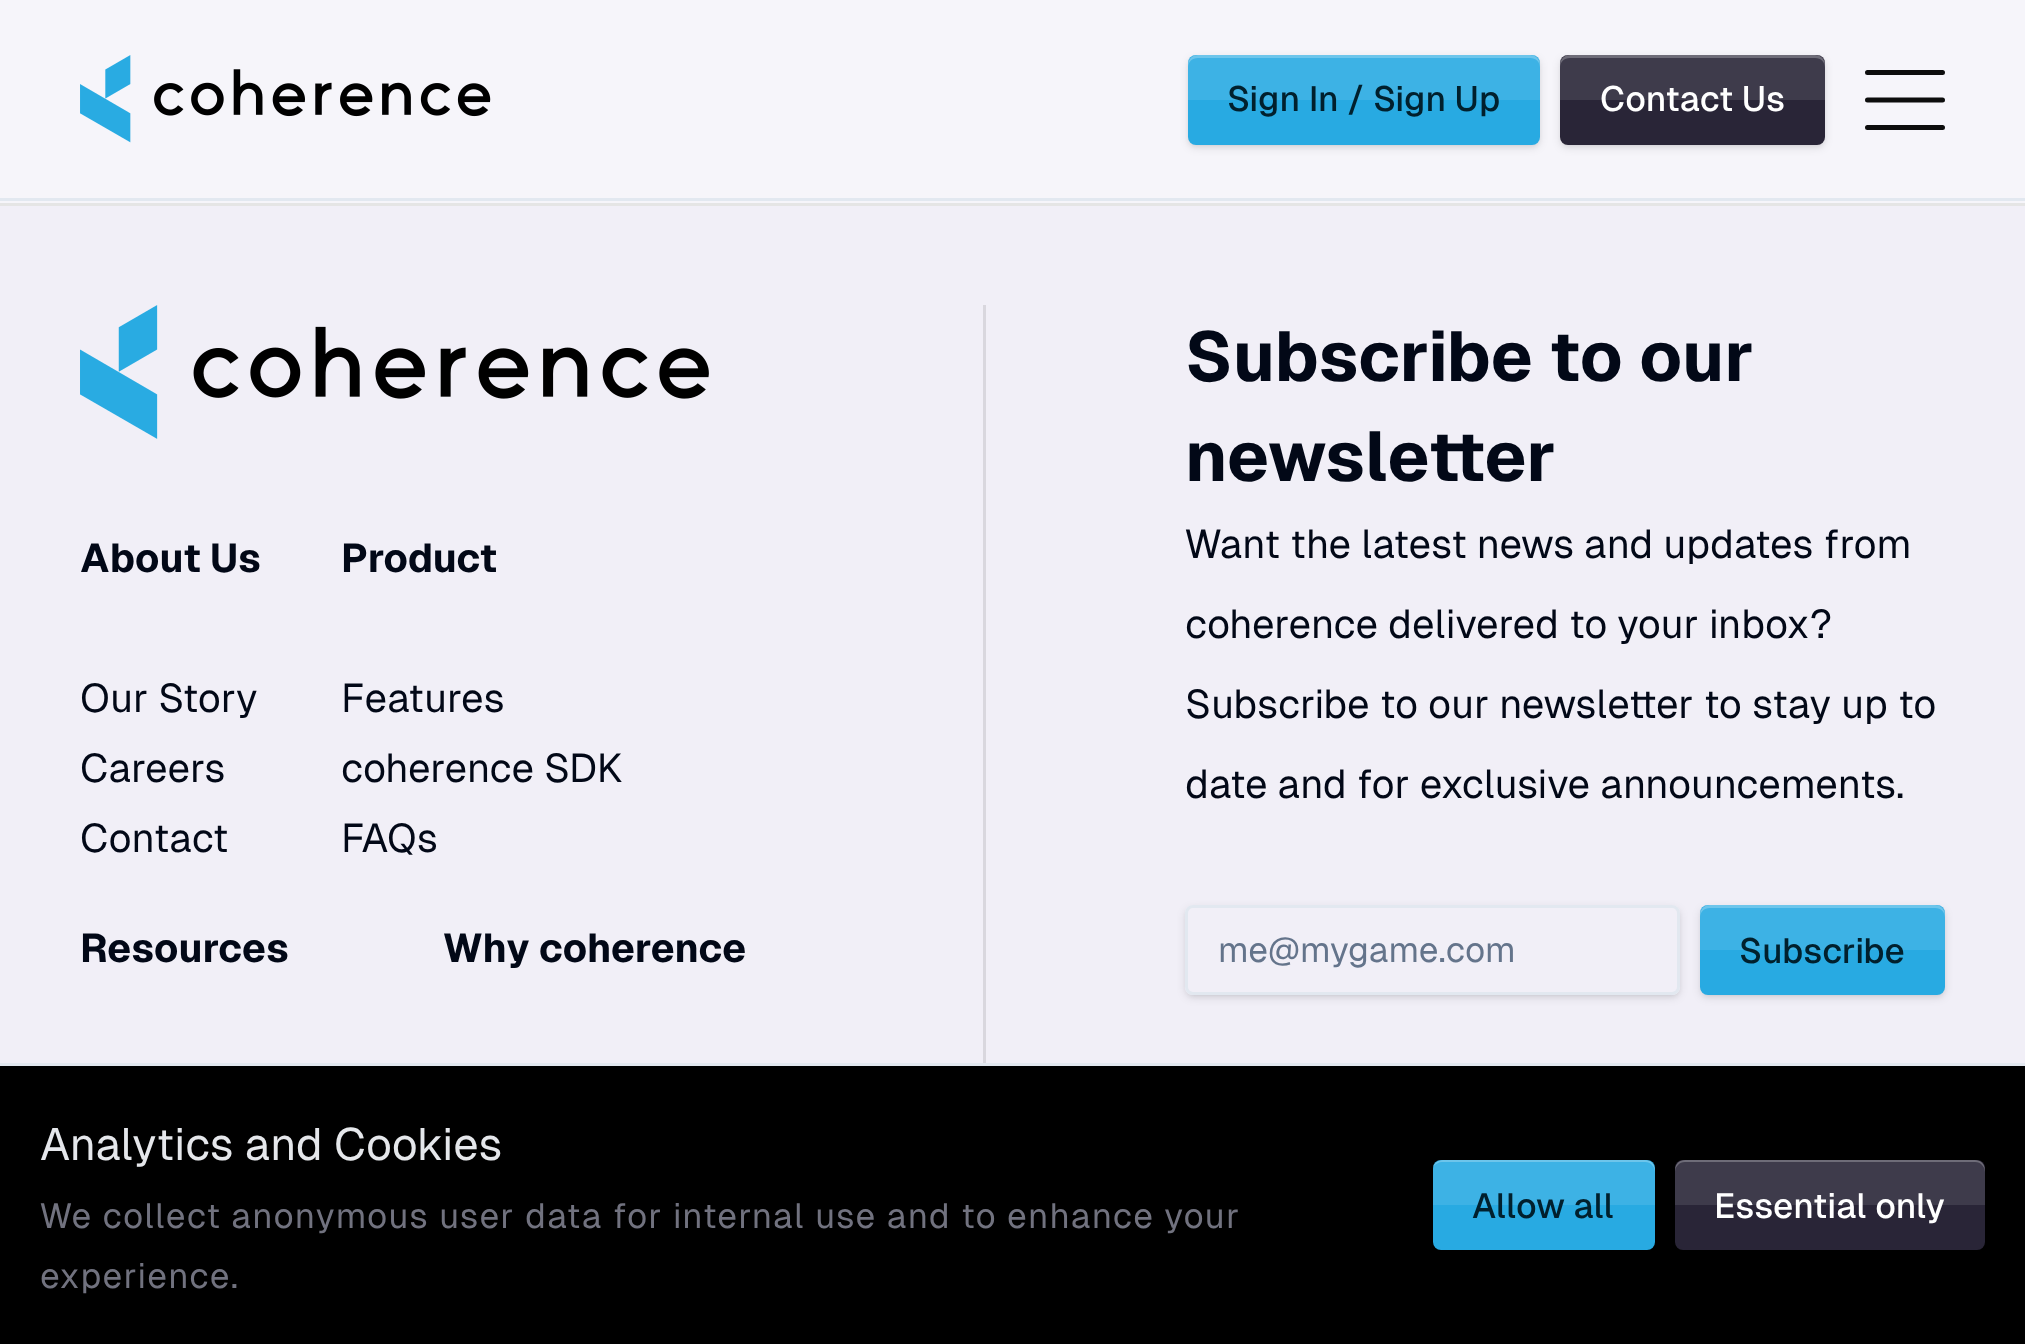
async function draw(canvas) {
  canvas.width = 2025
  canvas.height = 1344
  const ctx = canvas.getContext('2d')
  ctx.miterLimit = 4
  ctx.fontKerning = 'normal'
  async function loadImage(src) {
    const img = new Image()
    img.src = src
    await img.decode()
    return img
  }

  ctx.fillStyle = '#f6f5fa'
  ctx.fillRect(0, 0, 2025, 1344)
  ctx.fillStyle = '#e2e8f0'
  ctx.fillRect(0, 198, 2025, 3)
  ctx.drawImage(await loadImage('image0.png'), 80, 55, 411, 88)
  ctx.fillStyle = '#0000001a'
  ctx.filter = 'blur(2.5px)'
  ctx.beginPath()
  ctx.roundRect(1190, 60, 348, 85, 5)
  ctx.fill()
  ctx.filter = 'none'
  ctx.filter = 'blur(4px)'
  ctx.beginPath()
  ctx.roundRect(1188, 58, 352, 90, 8)
  ctx.fill()
  ctx.filter = 'none'
  ctx.fillStyle = '#28aae2'
  ctx.beginPath()
  ctx.roundRect(1188, 55, 352, 90, 8)
  ctx.fill()
  ctx.fillStyle = '#ffffff1a'
  ctx.beginPath()
  ctx.roundRect(1188, 55, 352, 45, [10, 10, 0, 0])
  ctx.fill()
  ctx.fillStyle = '#ffffff40'
  ctx.beginPath()
  ctx.moveTo(1198, 58)
  ctx.lineTo(1530, 58)
  ctx.bezierCurveTo(1536, 58, 1540, 62, 1540, 68)
  ctx.lineTo(1540, 65)
  ctx.bezierCurveTo(1540, 59, 1536, 55, 1530, 55)
  ctx.lineTo(1198, 55)
  ctx.bezierCurveTo(1192, 55, 1188, 59, 1188, 65)
  ctx.lineTo(1188, 68)
  ctx.bezierCurveTo(1188, 62, 1192, 58, 1198, 58)
  ctx.closePath()
  ctx.fill()
  ctx.font = '500 35px Geist'
  ctx.fillStyle = '#01202d'
  ctx.fillText('Sign In / Sign Up', 1227, 111)
  ctx.fillStyle = '#0000001a'
  ctx.filter = 'blur(2.5px)'
  ctx.beginPath()
  ctx.roundRect(1563, 60, 260, 85, 5)
  ctx.fill()
  ctx.filter = 'none'
  ctx.filter = 'blur(4px)'
  ctx.beginPath()
  ctx.roundRect(1560, 58, 265, 90, 8)
  ctx.fill()
  ctx.filter = 'none'
  ctx.fillStyle = '#292537'
  ctx.beginPath()
  ctx.roundRect(1560, 55, 265, 90, 8)
  ctx.fill()
  ctx.fillStyle = '#ffffff1a'
  ctx.beginPath()
  ctx.roundRect(1560, 55, 265, 45, [10, 10, 0, 0])
  ctx.fill()
  ctx.fillStyle = '#ffffff40'
  ctx.beginPath()
  ctx.moveTo(1570, 58)
  ctx.lineTo(1815, 58)
  ctx.bezierCurveTo(1821, 58, 1825, 62, 1825, 68)
  ctx.lineTo(1825, 65)
  ctx.bezierCurveTo(1825, 59, 1821, 55, 1815, 55)
  ctx.lineTo(1570, 55)
  ctx.bezierCurveTo(1564, 55, 1560, 59, 1560, 65)
  ctx.lineTo(1560, 68)
  ctx.bezierCurveTo(1560, 62, 1564, 58, 1570, 58)
  ctx.closePath()
  ctx.fill()
  ctx.fillStyle = '#fff'
  ctx.fillText('Contact Us', 1600, 111)
  ctx.beginPath()
  ctx.moveTo(1867.5, 72.5)
  ctx.lineTo(1942.5, 72.5)
  ctx.moveTo(1942.5, 127.5)
  ctx.lineTo(1867.5, 127.5)
  ctx.moveTo(1942.5, 100)
  ctx.lineTo(1867.5, 100)
  ctx.strokeStyle = '#0d0d0d'
  ctx.lineWidth = 5
  ctx.lineCap = 'round'
  ctx.lineJoin = 'round'
  ctx.stroke()
  ctx.fillStyle = '#f1eff7'
  ctx.fillRect(0, 206, 2025, 857)
  ctx.fillStyle = '#e5e5e5'
  ctx.fillRect(0, 203, 2025, 3)
  ctx.fillStyle = '#d9d7de'
  ctx.fillRect(983, 305, 3, 758)
  ctx.drawImage(await loadImage('image1.png'), 80, 305, 629, 134)
  ctx.font = 'bold 40px Geist'
  ctx.fillStyle = '#020817'
  ctx.fillText('About Us', 80, 572)
  ctx.font = '40px Geist'
  ctx.fillText('Our Story', 80, 712)
  ctx.fillText('Careers', 80, 782)
  ctx.fillText('Contact', 80, 852)
  ctx.font = 'bold 40px Geist'
  ctx.fillText('Product', 341, 572)
  ctx.font = '40px Geist'
  ctx.fillText('Features', 341, 712)
  ctx.fillText('coherence SDK', 341, 782)
  ctx.fillText('FAQs', 341, 852)
  ctx.font = 'bold 40px Geist'
  ctx.fillText('Resources', 80, 962)
  ctx.fillText('Why coherence', 443, 962)
  ctx.font = 'bold 70px Geist'
  ctx.fillText('Subscribe to our', 1185, 381)
  ctx.fillText('newsletter', 1185, 481)
  ctx.font = '40px Geist'
  ctx.fillText('Want the latest news and updates from', 1185, 558)
  ctx.fillText('coherence delivered to your inbox?', 1185, 638)
  ctx.fillText('Subscribe to our newsletter to stay up to', 1185, 718)
  ctx.fillText('date and for exclusive announcements.', 1185, 798)
  ctx.save()
  ctx.beginPath()
  ctx.moveTo(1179, 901)
  ctx.lineTo(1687, 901)
  ctx.lineTo(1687, 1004)
  ctx.lineTo(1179, 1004)
  ctx.closePath()
  ctx.moveTo(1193, 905)
  ctx.lineTo(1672, 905)
  ctx.bezierCurveTo(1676.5, 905, 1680, 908.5, 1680, 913)
  ctx.lineTo(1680, 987)
  ctx.bezierCurveTo(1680, 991.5, 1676.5, 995, 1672, 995)
  ctx.lineTo(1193, 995)
  ctx.bezierCurveTo(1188.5, 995, 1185, 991.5, 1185, 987)
  ctx.lineTo(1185, 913)
  ctx.bezierCurveTo(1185, 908.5, 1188.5, 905, 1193, 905)
  ctx.closePath()
  ctx.clip('evenodd')
  ctx.fillStyle = '#0000001a'
  ctx.filter = 'blur(2.5px)'
  ctx.beginPath()
  ctx.roundRect(1188, 910, 490, 85, 5)
  ctx.fill()
  ctx.filter = 'none'
  ctx.restore()
  ctx.save()
  ctx.beginPath()
  ctx.moveTo(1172, 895)
  ctx.lineTo(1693, 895)
  ctx.lineTo(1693, 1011)
  ctx.lineTo(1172, 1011)
  ctx.closePath()
  ctx.moveTo(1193, 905)
  ctx.lineTo(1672, 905)
  ctx.bezierCurveTo(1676.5, 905, 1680, 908.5, 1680, 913)
  ctx.lineTo(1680, 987)
  ctx.bezierCurveTo(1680, 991.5, 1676.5, 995, 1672, 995)
  ctx.lineTo(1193, 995)
  ctx.bezierCurveTo(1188.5, 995, 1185, 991.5, 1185, 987)
  ctx.lineTo(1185, 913)
  ctx.bezierCurveTo(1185, 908.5, 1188.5, 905, 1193, 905)
  ctx.closePath()
  ctx.clip('evenodd')
  ctx.fillStyle = '#0000001a'
  ctx.filter = 'blur(4px)'
  ctx.beginPath()
  ctx.roundRect(1185, 908, 495, 90, 8)
  ctx.fill()
  ctx.filter = 'none'
  ctx.restore()
  ctx.beginPath()
  ctx.roundRect(1186.5, 906.5, 492, 87, 6.5)
  ctx.strokeStyle = '#e2e8f0'
  ctx.lineWidth = 3
  ctx.lineJoin = 'miter'
  ctx.stroke()
  ctx.font = '35px Geist'
  ctx.fillStyle = '#64748b'
  ctx.fillText('me@mygame.com', 1218, 962)
  ctx.fillStyle = '#0000001a'
  ctx.filter = 'blur(2.5px)'
  ctx.beginPath()
  ctx.roundRect(1703, 910, 240, 85, 5)
  ctx.fill()
  ctx.filter = 'none'
  ctx.filter = 'blur(4px)'
  ctx.beginPath()
  ctx.roundRect(1700, 908, 245, 90, 8)
  ctx.fill()
  ctx.filter = 'none'
  ctx.fillStyle = '#28aae2'
  ctx.beginPath()
  ctx.roundRect(1700, 905, 245, 90, 8)
  ctx.fill()
  ctx.fillStyle = '#ffffff1a'
  ctx.beginPath()
  ctx.roundRect(1700, 905, 245, 45, [10, 10, 0, 0])
  ctx.fill()
  ctx.fillStyle = '#ffffff40'
  ctx.beginPath()
  ctx.moveTo(1710, 908)
  ctx.lineTo(1935, 908)
  ctx.bezierCurveTo(1941, 908, 1945, 912, 1945, 918)
  ctx.lineTo(1945, 915)
  ctx.bezierCurveTo(1945, 909, 1941, 905, 1935, 905)
  ctx.lineTo(1710, 905)
  ctx.bezierCurveTo(1704, 905, 1700, 909, 1700, 915)
  ctx.lineTo(1700, 918)
  ctx.bezierCurveTo(1700, 912, 1704, 908, 1710, 908)
  ctx.closePath()
  ctx.fill()
  ctx.font = '500 35px Geist'
  ctx.fillStyle = '#01202d'
  ctx.fillText('Subscribe', 1739, 963)
  ctx.fillStyle = '#000'
  ctx.fillRect(0, 1066, 2025, 278)
  ctx.fillStyle = '#e2e8f0'
  ctx.fillRect(0, 1063, 2025, 3)
  ctx.font = '45px Geist'
  ctx.fillStyle = '#e5e7eb'
  ctx.fillText('Analytics and Cookies', 40, 1160)
  ctx.letterSpacing = '1.25px'
  ctx.font = '35px Geist'
  ctx.fillStyle = '#71727f'
  ctx.fillText('We collect anonymous user data for internal use and to enhance your', 40, 1228)
  ctx.fillText('experience.', 40, 1288)
  ctx.fillStyle = '#28aae2'
  ctx.beginPath()
  ctx.roundRect(1433, 1160, 222, 90, 8)
  ctx.fill()
  ctx.fillStyle = '#ffffff1a'
  ctx.beginPath()
  ctx.roundRect(1433, 1160, 222, 45, [10, 10, 0, 0])
  ctx.fill()
  ctx.fillStyle = '#ffffff40'
  ctx.beginPath()
  ctx.moveTo(1442, 1162)
  ctx.lineTo(1645, 1162)
  ctx.bezierCurveTo(1651, 1162, 1655, 1167, 1655, 1172)
  ctx.lineTo(1655, 1170)
  ctx.bezierCurveTo(1655, 1164, 1651, 1160, 1645, 1160)
  ctx.lineTo(1443, 1160)
  ctx.bezierCurveTo(1438, 1160, 1434, 1163, 1433, 1167)
  ctx.bezierCurveTo(1435, 1164, 1439, 1162, 1442, 1162)
  ctx.closePath()
  ctx.fill()
  ctx.letterSpacing = '0px'
  ctx.font = '500 35px Geist'
  ctx.fillStyle = '#01202d'
  ctx.fillText('Allow all', 1472, 1218)
  ctx.fillStyle = '#292537'
  ctx.beginPath()
  ctx.roundRect(1675, 1160, 310, 90, 8)
  ctx.fill()
  ctx.fillStyle = '#ffffff1a'
  ctx.beginPath()
  ctx.roundRect(1675, 1160, 310, 45, [10, 10, 0, 0])
  ctx.fill()
  ctx.fillStyle = '#ffffff40'
  ctx.beginPath()
  ctx.moveTo(1685, 1162)
  ctx.lineTo(1975, 1162)
  ctx.bezierCurveTo(1981, 1162, 1985, 1167, 1985, 1172)
  ctx.lineTo(1985, 1170)
  ctx.bezierCurveTo(1985, 1164, 1981, 1160, 1975, 1160)
  ctx.lineTo(1685, 1160)
  ctx.bezierCurveTo(1679, 1160, 1675, 1164, 1675, 1170)
  ctx.lineTo(1675, 1172)
  ctx.bezierCurveTo(1675, 1167, 1679, 1162, 1685, 1162)
  ctx.closePath()
  ctx.fill()
  ctx.fillStyle = '#fff'
  ctx.fillText('Essential only', 1714, 1218)
}

draw(document.querySelector('canvas'))
